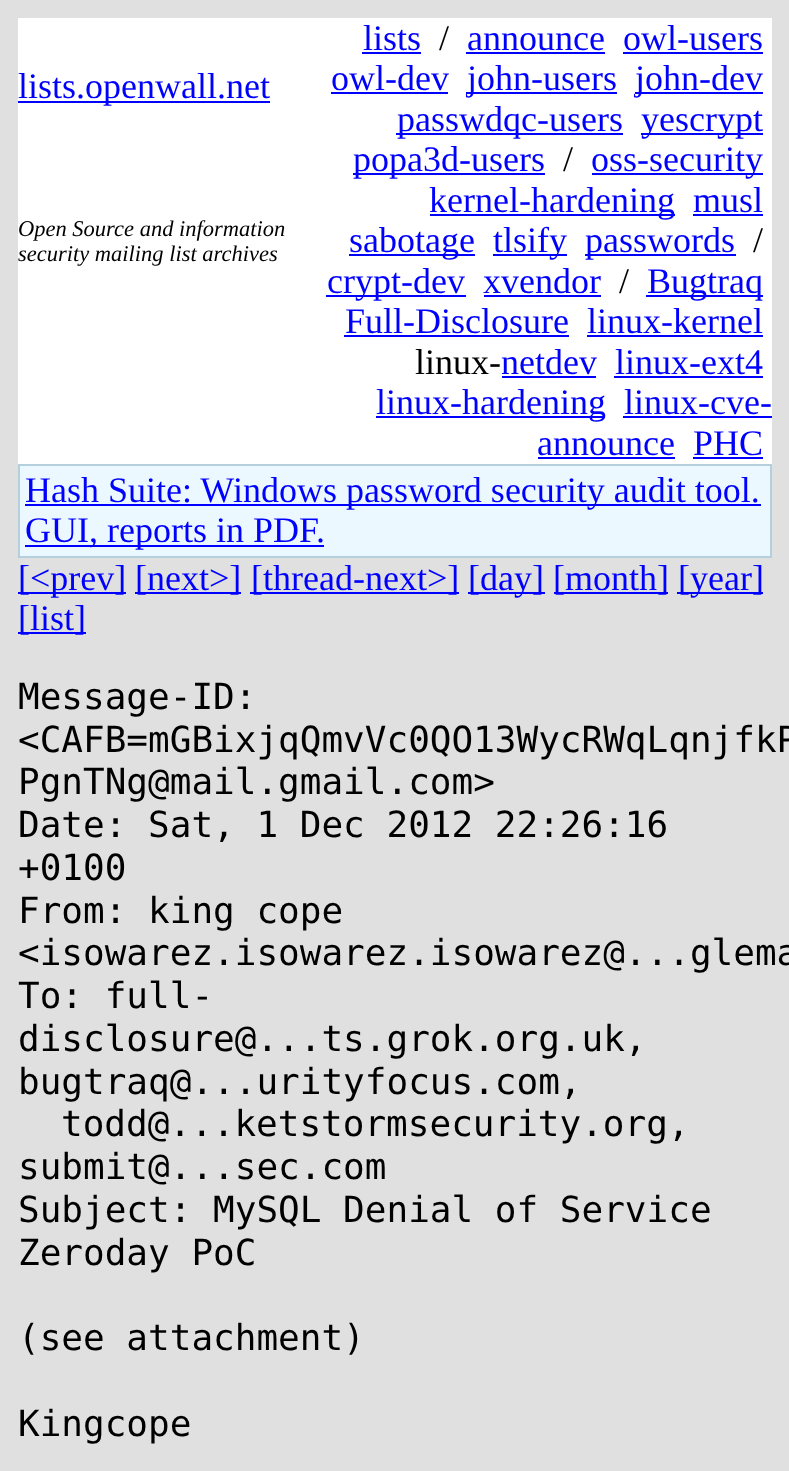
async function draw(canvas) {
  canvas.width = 789
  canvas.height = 1471
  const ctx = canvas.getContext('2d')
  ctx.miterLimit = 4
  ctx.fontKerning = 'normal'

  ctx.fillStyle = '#e0e0e0'
  ctx.fillRect(0, 0, 789, 1471)
  ctx.fillStyle = '#fff'
  ctx.fillRect(18, 18, 754, 446)
  ctx.fillStyle = '#00f'
  ctx.fillRect(18, 101, 252, 2)
  ctx.font = '36px Liberation Serif'
  ctx.fillText('lists.openwall.net', 18, 98)
  ctx.fillText('lists', 363, 50)
  ctx.fillRect(362, 52, 59, 2)
  ctx.fillStyle = '#000'
  ctx.fillText('/', 439, 50)
  ctx.fillStyle = '#00f'
  ctx.fillText('announce', 467, 50)
  ctx.fillRect(466, 52, 139, 2)
  ctx.fillText('owl-users', 623, 50)
  ctx.fillRect(623, 52, 140, 2)
  ctx.fillText('owl-dev', 331, 90)
  ctx.fillRect(331, 92, 117, 2)
  ctx.fillRect(466, 92, 151, 2)
  ctx.fillText('john-users', 467, 90)
  ctx.fillRect(635, 92, 128, 2)
  ctx.fillText('john-dev', 635, 90)
  ctx.fillRect(396, 133, 227, 2)
  ctx.fillText('passwdqc-users', 397, 131)
  ctx.fillRect(641, 133, 122, 2)
  ctx.fillText('yescrypt', 641, 131)
  ctx.fillRect(353, 173, 192, 2)
  ctx.fillText('popa3d-users', 353, 171)
  ctx.fillStyle = '#000'
  ctx.fillText('/', 563, 171)
  ctx.fillStyle = '#00f'
  ctx.fillRect(592, 173, 171, 2)
  ctx.fillText('oss-security', 591, 171)
  ctx.fillRect(430, 214, 245, 2)
  ctx.fillText('kernel-hardening', 429, 212)
  ctx.fillText('musl', 693, 212)
  ctx.fillRect(693, 214, 70, 2)
  ctx.fillRect(349, 254, 126, 2)
  ctx.fillText('sabotage', 349, 252)
  ctx.fillRect(493, 254, 74, 2)
  ctx.fillText('tlsify', 493, 252)
  ctx.fillRect(585, 254, 151, 2)
  ctx.fillText('passwords', 585, 252)
  ctx.fillStyle = '#000'
  ctx.fillText('/', 753, 252)
  ctx.fillStyle = '#00f'
  ctx.fillRect(326, 295, 140, 2)
  ctx.fillText('crypt-dev', 327, 293)
  ctx.fillText('xvendor', 483, 293)
  ctx.fillRect(484, 295, 117, 2)
  ctx.fillStyle = '#000'
  ctx.fillText('/', 619, 293)
  ctx.fillStyle = '#00f'
  ctx.fillRect(646, 295, 117, 2)
  ctx.fillText('Bugtraq', 647, 293)
  ctx.fillText('Full-Disclosure', 345, 333)
  ctx.fillRect(344, 335, 225, 2)
  ctx.fillText('linux-kernel', 587, 333)
  ctx.fillRect(587, 335, 176, 2)
  ctx.fillStyle = '#000'
  ctx.fillText('linux-', 415, 374)
  ctx.fillStyle = '#00f'
  ctx.fillText('netdev', 501, 374)
  ctx.fillRect(502, 376, 94, 2)
  ctx.fillText('linux-ext4', 615, 374)
  ctx.fillRect(614, 376, 149, 2)
  ctx.fillRect(376, 416, 229, 2)
  ctx.fillText('linux-hardening', 376, 414)
  ctx.fillText('linux-cve-', 624, 414)
  ctx.fillRect(623, 416, 149, 2)
  ctx.fillText('announce', 537, 455)
  ctx.fillRect(538, 457, 137, 2)
  ctx.fillText('PHC', 693, 455)
  ctx.fillRect(693, 457, 70, 2)
  ctx.font = 'italic 22.5px Liberation Serif'
  ctx.fillStyle = '#000'
  ctx.fillText('Open Source and information', 18, 236)
  ctx.fillText('security mailing list archives', 18, 261)
  ctx.fillStyle = '#b4d0dc'
  ctx.fillRect(18, 464, 754, 94)
  ctx.fillStyle = '#ecf8ff'
  ctx.fillRect(20, 466, 750, 90)
  ctx.fillStyle = '#00f'
  ctx.fillRect(25, 504, 736, 2)
  ctx.font = '36px Liberation Serif'
  ctx.fillText('Hash Suite: Windows password security audit tool.', 25, 502)
  ctx.fillRect(25, 545, 299, 2)
  ctx.fillText('GUI, reports in PDF.', 25, 542)
  ctx.fillRect(18, 592, 108, 2)
  ctx.fillText('[<prev]', 18, 590)
  ctx.fillRect(135, 592, 106, 2)
  ctx.fillText('[next>]', 135, 590)
  ctx.fillRect(250, 592, 209, 2)
  ctx.fillText('[thread-next>]', 251, 590)
  ctx.fillRect(468, 592, 77, 2)
  ctx.fillText('[day]', 468, 590)
  ctx.fillRect(554, 592, 114, 2)
  ctx.fillText('[month]', 553, 590)
  ctx.fillRect(677, 592, 86, 2)
  ctx.fillText('[year]', 678, 590)
  ctx.fillRect(18, 632, 68, 2)
  ctx.fillText('[list]', 18, 630)
  ctx.font = '36px DejaVu Sans Mono'
  ctx.fillStyle = '#000'
  ctx.fillText('Message-ID:', 18, 709)
  ctx.fillText('<CAFB=mGBixjqQmvVc0QO13WycRWqLqnjfkP', 18, 752)
  ctx.fillText('PgnTNg@mail.gmail.com>', 18, 794)
  ctx.fillText('Date: Sat, 1 Dec 2012 22:26:16', 18, 837)
  ctx.fillText('+0100', 18, 880)
  ctx.fillText('From: king cope', 18, 923)
  ctx.fillText('<isowarez.isowarez.isowarez@...glema', 18, 965)
  ctx.fillText('To: full-', 18, 1008)
  ctx.fillText('disclosure@...ts.grok.org.uk,', 18, 1051)
  ctx.fillText('bugtraq@...urityfocus.com,', 18, 1094)
  ctx.fillText('todd@...ketstormsecurity.org,', 61, 1136)
  ctx.fillText('submit@...sec.com', 18, 1179)
  ctx.fillText('Subject: MySQL Denial of Service', 18, 1222)
  ctx.fillText('Zeroday PoC', 18, 1265)
  ctx.fillText('(see attachment)', 18, 1350)
  ctx.fillText('Kingcope', 18, 1436)
}

draw(document.querySelector('canvas'))
